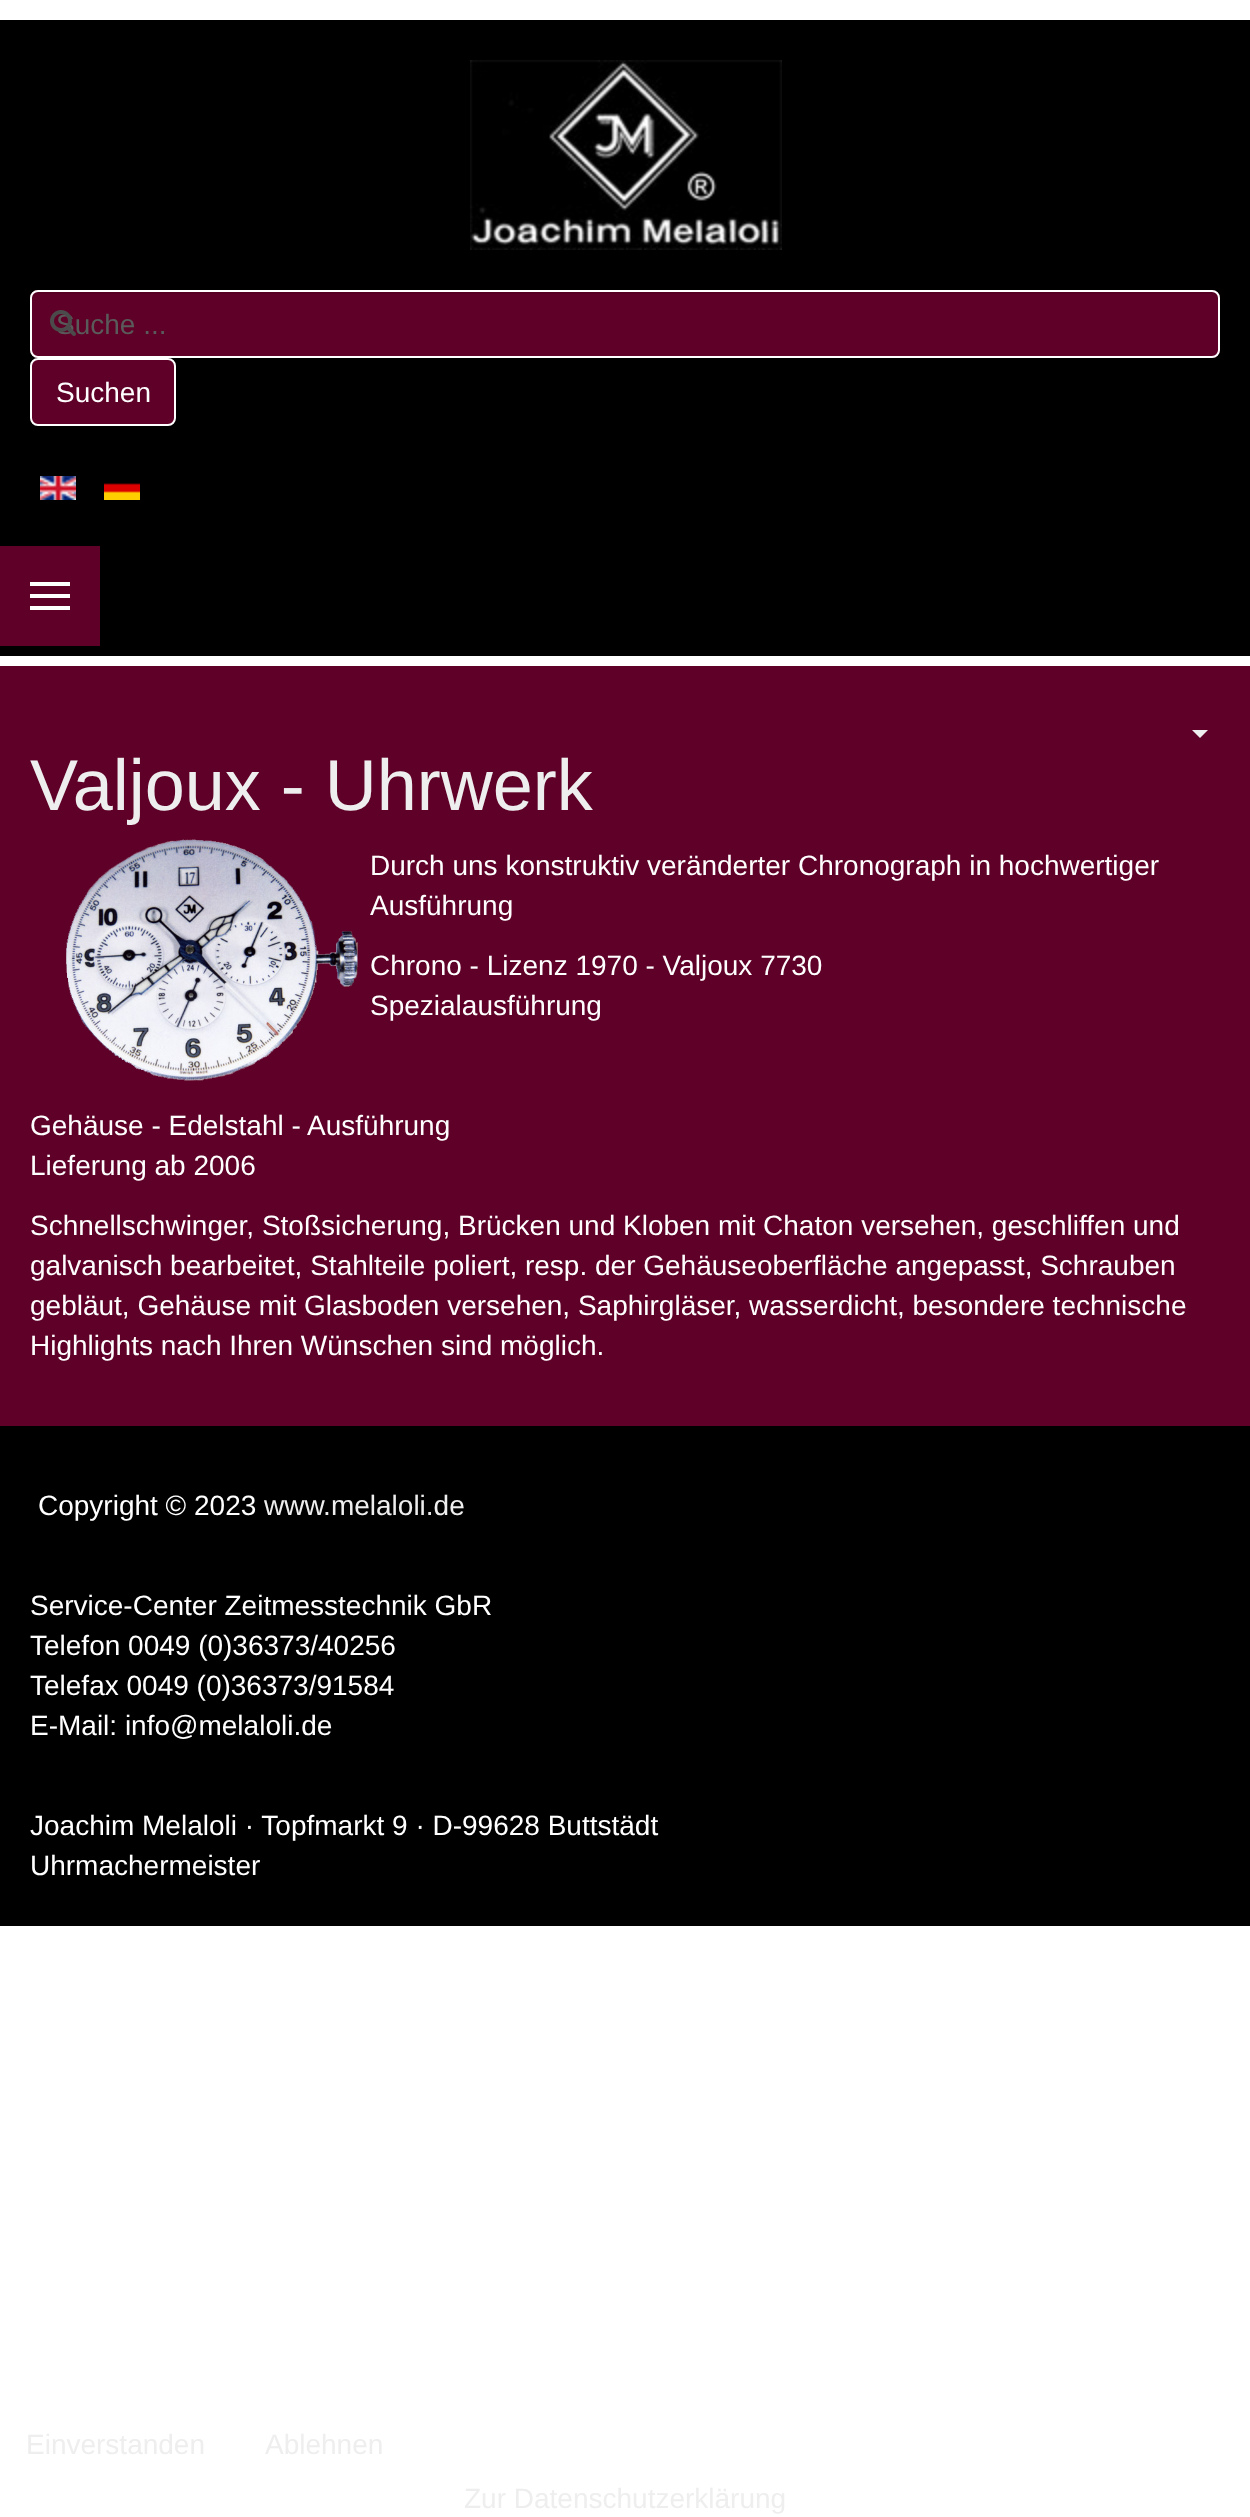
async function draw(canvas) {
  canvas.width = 1250
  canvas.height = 2517
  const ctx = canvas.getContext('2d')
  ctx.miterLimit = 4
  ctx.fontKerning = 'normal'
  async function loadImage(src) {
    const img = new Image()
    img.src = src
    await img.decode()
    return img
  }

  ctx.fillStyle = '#fff'
  ctx.fillRect(0, 0, 1250, 2517)
  ctx.fillStyle = '#000'
  ctx.fillRect(0, 20, 1250, 636)
  ctx.drawImage(await loadImage('image0.png'), 470, 60, 312, 190)
  ctx.fillStyle = '#5e0027'
  ctx.beginPath()
  ctx.roundRect(30, 290, 1190, 68, 8)
  ctx.fill()
  ctx.fillStyle = '#570024'
  ctx.beginPath()
  ctx.moveTo(38, 294)
  ctx.lineTo(1212, 294)
  ctx.bezierCurveTo(1215, 294, 1218, 297, 1218, 300)
  ctx.lineTo(1218, 298)
  ctx.bezierCurveTo(1218, 295, 1215, 292, 1212, 292)
  ctx.lineTo(38, 292)
  ctx.bezierCurveTo(35, 292, 32, 295, 32, 298)
  ctx.lineTo(32, 300)
  ctx.bezierCurveTo(32, 297, 35, 294, 38, 294)
  ctx.closePath()
  ctx.fill()
  ctx.beginPath()
  ctx.roundRect(31, 291, 1188, 66, 7)
  ctx.strokeStyle = '#fff'
  ctx.lineWidth = 2
  ctx.stroke()
  ctx.font = '28px Liberation Sans'
  ctx.fillStyle = '#5a5a5a'
  ctx.fillText('Suche ...', 56, 334)
  ctx.drawImage(await loadImage('image1.png'), 50, 310, 26, 26)
  ctx.fillStyle = '#5e0027'
  ctx.beginPath()
  ctx.roundRect(31, 359, 144, 66, 7)
  ctx.fill()
  ctx.stroke()
  ctx.fillStyle = '#fff'
  ctx.fillText('Suchen', 56, 402)
  ctx.drawImage(await loadImage('image2.png'), 40, 476, 36, 24)
  ctx.drawImage(await loadImage('image3.png'), 104, 483, 36, 17)
  ctx.fillStyle = '#5e0027'
  ctx.fillRect(0, 546, 100, 100)
  ctx.fillStyle = '#fff'
  ctx.fillRect(30, 582, 40, 4)
  ctx.fillRect(30, 594, 40, 4)
  ctx.fillRect(30, 606, 40, 4)
  ctx.fillStyle = '#5e0027'
  ctx.fillRect(0, 666, 1250, 760)
  ctx.fillStyle = '#eee'
  ctx.beginPath()
  ctx.moveTo(1192, 730)
  ctx.lineTo(1208, 730)
  ctx.lineTo(1200, 738)
  ctx.closePath()
  ctx.fill()
  ctx.font = '72px Liberation Sans'
  ctx.fillText('Valjoux - Uhrwerk', 30, 810)
  ctx.drawImage(await loadImage('image4.png'), 66, 839, 292, 242)
  ctx.font = '28px Liberation Sans'
  ctx.fillStyle = '#fff'
  ctx.fillText('Durch uns konstruktiv veränderter Chronograph in hochwertiger', 370, 875)
  ctx.fillText('Ausführung', 370, 915)
  ctx.fillText('Chrono - Lizenz 1970 - Valjoux 7730', 370, 975)
  ctx.fillText('Spezialausführung', 370, 1015)
  ctx.fillText('Gehäuse - Edelstahl - Ausführung', 30, 1135)
  ctx.fillText('Lieferung ab 2006', 30, 1175)
  ctx.fillText('Schnellschwinger, Stoßsicherung, Brücken und Kloben mit Chaton versehen, geschliffen und', 30, 1235)
  ctx.fillText('galvanisch bearbeitet, Stahlteile poliert, resp. der Gehäuseoberfläche angepasst, Schrauben', 30, 1275)
  ctx.fillText('gebläut, Gehäuse mit Glasboden versehen, Saphirgläser, wasserdicht, besondere technische', 30, 1315)
  ctx.fillText('Highlights nach Ihren Wünschen sind möglich.', 30, 1355)
  ctx.fillStyle = '#000'
  ctx.fillRect(0, 1426, 1250, 500)
  ctx.fillStyle = '#fff'
  ctx.fillText('Copyright © 2023', 38, 1515)
  ctx.fillStyle = '#eee'
  ctx.fillText('www.melaloli.de', 264, 1515)
  ctx.fillStyle = '#fff'
  ctx.fillText('Service-Center Zeitmesstechnik GbR', 30, 1615)
  ctx.fillText('Telefon 0049 (0)36373/40256', 30, 1655)
  ctx.fillText('Telefax 0049 (0)36373/91584', 30, 1695)
  ctx.fillText('E-Mail: info@melaloli.de', 30, 1735)
  ctx.fillText('Joachim Melaloli · Topfmarkt 9 · D-99628 Buttstädt', 30, 1835)
  ctx.fillText('Uhrmachermeister', 30, 1875)
  ctx.fillStyle = '#eee'
  ctx.fillText('Einverstanden', 26, 2454)
  ctx.fillText('Ablehnen', 265, 2454)
  ctx.fillText('Zur Datenschutzerklärung', 464, 2508)
}

draw(document.querySelector('canvas'))
